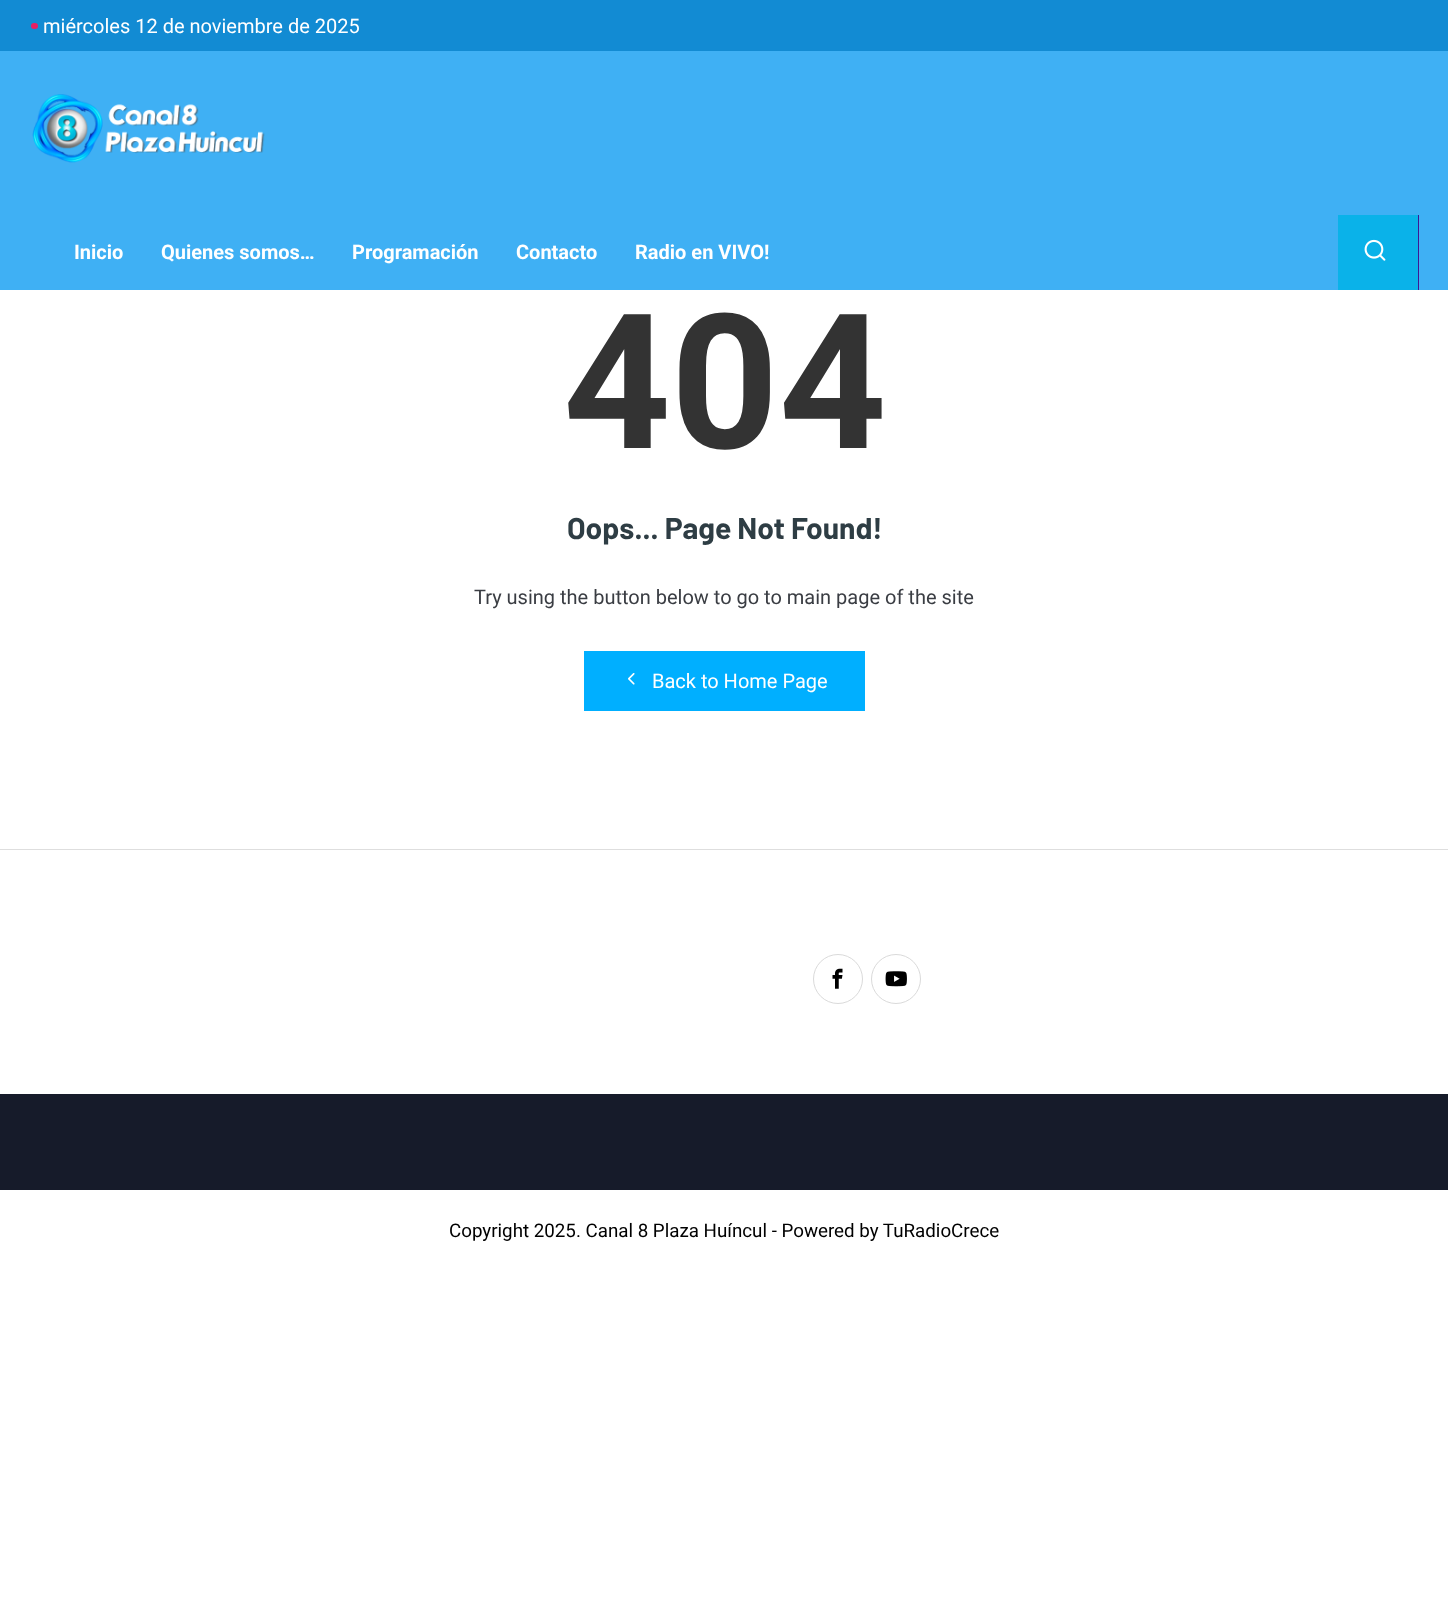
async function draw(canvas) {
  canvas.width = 1448
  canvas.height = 1620
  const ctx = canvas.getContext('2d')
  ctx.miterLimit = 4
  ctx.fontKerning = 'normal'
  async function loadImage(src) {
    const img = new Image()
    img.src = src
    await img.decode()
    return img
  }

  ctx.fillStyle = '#fff'
  ctx.fillRect(0, 0, 1448, 1620)
  ctx.fillStyle = '#128bd3'
  ctx.fillRect(0, 0, 1448, 51)
  ctx.fillStyle = '#e91e63'
  ctx.beginPath()
  ctx.roundRect(31, 23, 7, 6, 3)
  ctx.fill()
  ctx.font = '20px Roboto'
  ctx.fillStyle = '#fff'
  ctx.fillText('miércoles 12 de noviembre de 2025', 43, 33)
  ctx.fillStyle = '#3fb0f4'
  ctx.fillRect(0, 51, 1448, 239)
  ctx.drawImage(await loadImage('image0.png'), 32, 94, 233, 69)
  ctx.fillStyle = '#3d1792'
  ctx.fillRect(1418, 215, 1, 75)
  ctx.font = 'bold 20px Roboto'
  ctx.fillStyle = '#fff'
  ctx.fillText('Inicio', 74, 259)
  ctx.fillText('Quienes somos…', 161, 259)
  ctx.fillText('Programación', 352, 259)
  ctx.fillText('Contacto', 516, 259)
  ctx.fillText('Radio en VIVO!', 635, 259)
  ctx.fillStyle = '#0ab2e9'
  ctx.fillRect(1338, 215, 80, 75)
  ctx.drawImage(await loadImage('image1.png'), 1364, 239, 22, 22)
  ctx.font = 'bold 188px Roboto'
  ctx.fillStyle = '#333'
  ctx.fillText('404', 563, 448)
  ctx.font = 'bold 30px Barlow'
  ctx.fillStyle = '#2e3d44'
  ctx.fillText('Oops... Page Not Found!', 567, 539)
  ctx.font = '20px Roboto'
  ctx.fillStyle = '#3a3d43'
  ctx.fillText('Try using the button below to go to main page of the site', 474, 604)
  ctx.fillStyle = '#00afff'
  ctx.fillRect(584, 651, 281, 60)
  ctx.drawImage(await loadImage('image2.png'), 628, 673, 7, 12)
  ctx.fillStyle = '#fff'
  ctx.fillText('Back to Home Page', 652, 688)
  ctx.fillStyle = '#dedede'
  ctx.fillRect(0, 849, 1448, 1)
  ctx.beginPath()
  ctx.arc(838, 979, 24.5, 0, 2 * Math.PI)
  ctx.strokeStyle = '#dadada'
  ctx.stroke()
  ctx.drawImage(await loadImage('image3.png'), 832, 968, 11, 21)
  ctx.beginPath()
  ctx.arc(896, 979, 24.5, 0, 2 * Math.PI)
  ctx.stroke()
  ctx.drawImage(await loadImage('image4.png'), 885, 971, 22, 16)
  ctx.fillStyle = '#161b2a'
  ctx.fillRect(0, 1094, 1448, 96)
  ctx.font = '18.75px Roboto'
  ctx.fillStyle = '#000'
  ctx.fillText('Copyright 2025. Canal 8 Plaza Huíncul - Powered by TuRadioCrece', 449, 1237)
}

draw(document.querySelector('canvas'))
